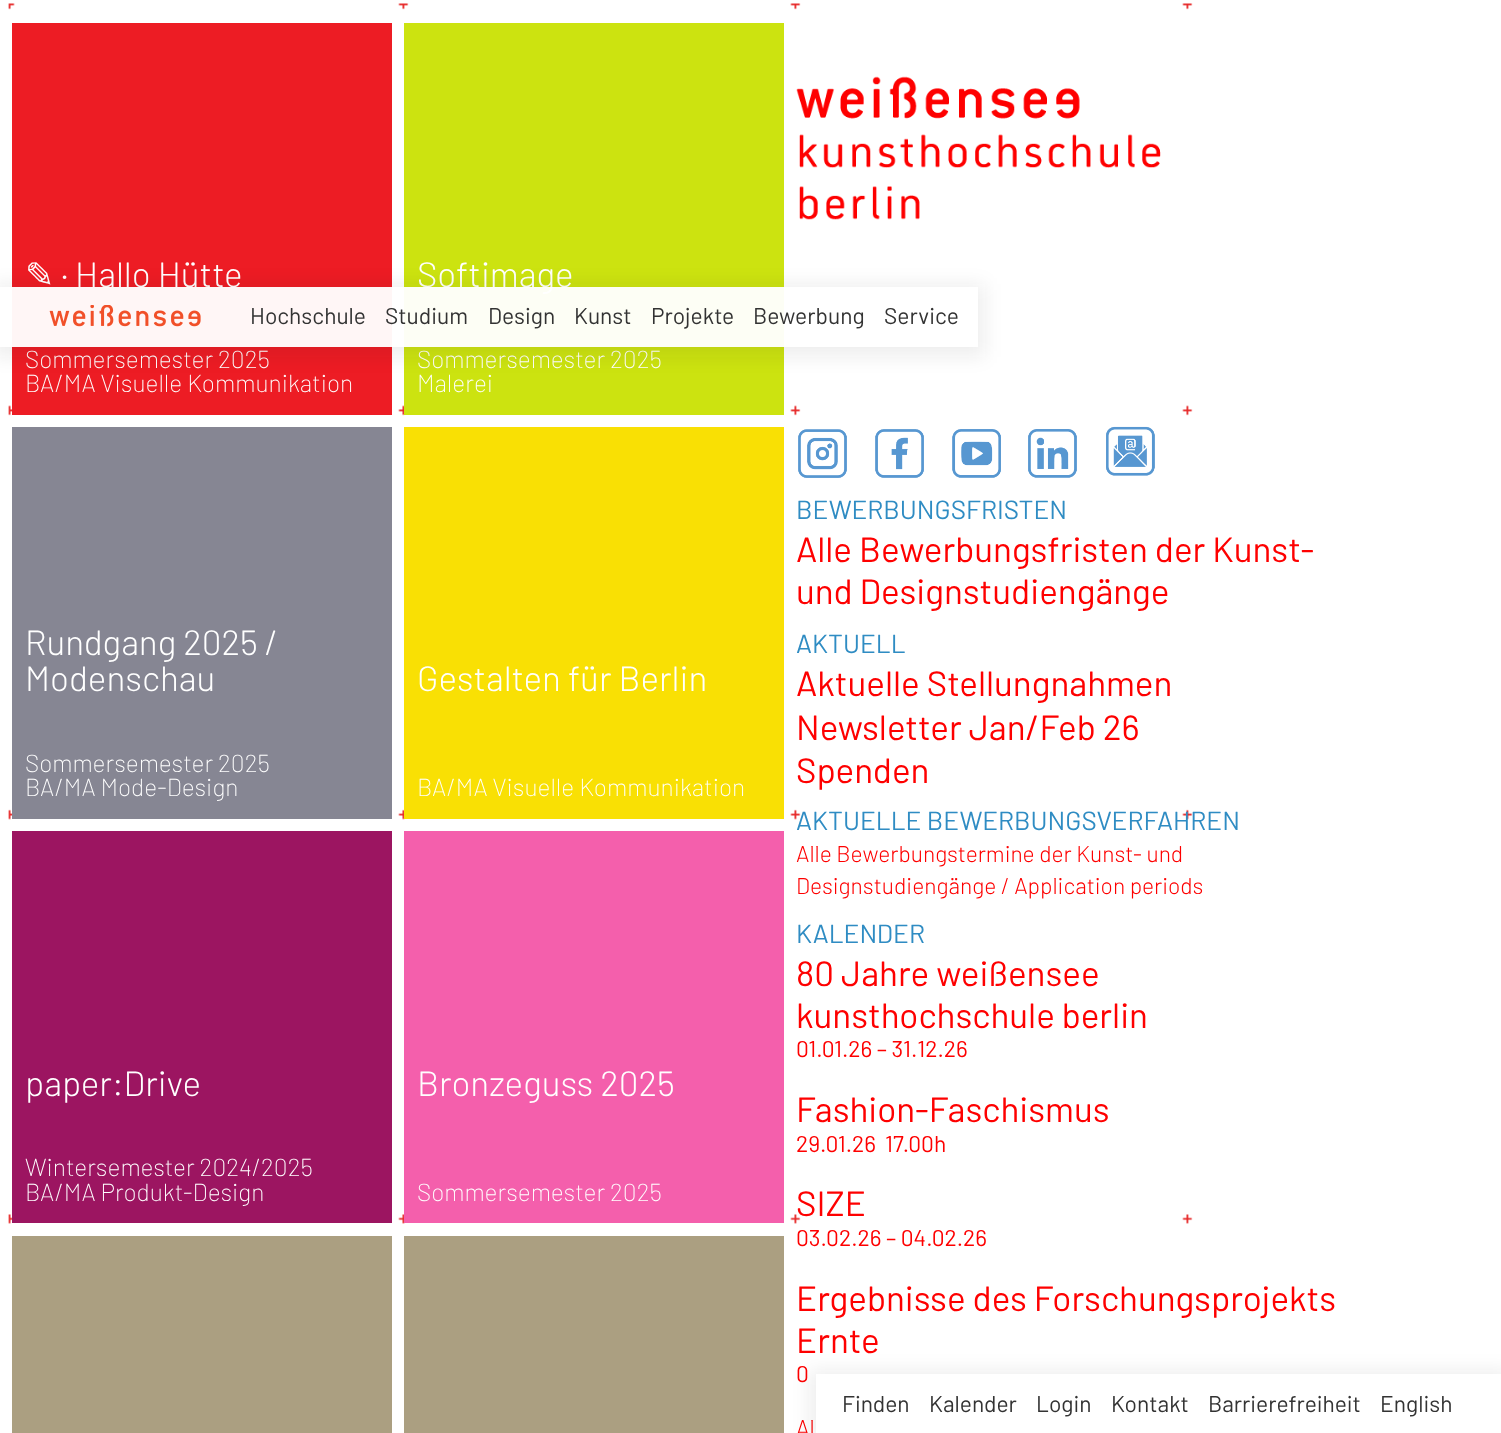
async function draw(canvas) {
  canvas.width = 1501
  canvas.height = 1433
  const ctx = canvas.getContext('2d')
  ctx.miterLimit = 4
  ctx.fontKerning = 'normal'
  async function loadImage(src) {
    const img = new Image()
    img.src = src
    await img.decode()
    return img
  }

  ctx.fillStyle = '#fff'
  ctx.fillRect(0, 0, 1501, 1433)
  ctx.drawImage(await loadImage('image0.png'), 8, 3, 1185, 1221)
  ctx.fillStyle = '#ed1c24'
  ctx.fillRect(12, 23, 380, 392)
  ctx.font = '35px DejaVu Sans'
  ctx.fillStyle = '#fff'
  ctx.fillText('✎', 25, 287)
  ctx.font = '300 35px Barlow'
  ctx.fillText('· Hallo Hütte', 61, 287)
  ctx.font = '200 24.5px Barlow'
  ctx.fillText('Sommersemester 2025', 25, 368)
  ctx.fillText('BA/MA Visuelle Kommunikation', 25, 392)
  ctx.fillStyle = '#cce310'
  ctx.fillRect(404, 23, 380, 392)
  ctx.font = '300 35px Barlow'
  ctx.fillStyle = '#fff'
  ctx.fillText('Softimage', 417, 287)
  ctx.font = '200 24.5px Barlow'
  ctx.fillText('Sommersemester 2025', 417, 368)
  ctx.fillText('Malerei', 417, 392)
  ctx.fillStyle = '#868693'
  ctx.fillRect(12, 427, 380, 392)
  ctx.font = '300 35px Barlow'
  ctx.fillStyle = '#fff'
  ctx.fillText('Rundgang 2025 /', 25, 655)
  ctx.fillText('Modenschau', 25, 691)
  ctx.font = '200 24.5px Barlow'
  ctx.fillText('Sommersemester 2025', 25, 772)
  ctx.fillText('BA/MA Mode-Design', 25, 796)
  ctx.fillStyle = '#f9e004'
  ctx.fillRect(404, 427, 380, 392)
  ctx.font = '300 35px Barlow'
  ctx.fillStyle = '#fff'
  ctx.fillText('Gestalten für Berlin', 417, 691)
  ctx.font = '200 24.5px Barlow'
  ctx.fillText('BA/MA Visuelle Kommunikation', 417, 796)
  ctx.fillStyle = '#9c1561'
  ctx.fillRect(12, 831, 380, 392)
  ctx.font = '300 35px Barlow'
  ctx.fillStyle = '#fff'
  ctx.fillText('paper:Drive', 25, 1096)
  ctx.font = '200 24.5px Barlow'
  ctx.fillText('Wintersemester 2024/2025', 25, 1176)
  ctx.fillText('BA/MA Produkt-Design', 25, 1201)
  ctx.fillStyle = '#f45fac'
  ctx.fillRect(404, 831, 380, 392)
  ctx.font = '300 35px Barlow'
  ctx.fillStyle = '#fff'
  ctx.fillText('Bronzeguss 2025', 417, 1096)
  ctx.font = '200 24.5px Barlow'
  ctx.fillText('Sommersemester 2025', 417, 1201)
  ctx.fillStyle = '#ab9f81'
  ctx.fillRect(12, 1236, 380, 197)
  ctx.fillRect(404, 1236, 380, 197)
  ctx.drawImage(await loadImage('image1.png'), 796, 76, 365, 144)
  ctx.drawImage(await loadImage('image2.png'), 798, 429, 49, 49)
  ctx.drawImage(await loadImage('image3.png'), 875, 429, 49, 49)
  ctx.drawImage(await loadImage('image4.png'), 952, 429, 49, 49)
  ctx.drawImage(await loadImage('image5.png'), 1028, 429, 49, 49)
  ctx.drawImage(await loadImage('image6.png'), 1106, 426, 49, 50)
  ctx.font = '26.25px Barlow'
  ctx.fillStyle = '#2f8cc3'
  ctx.fillText('BEWERBUNGSFRISTEN', 796, 519)
  ctx.font = '35px Barlow'
  ctx.fillStyle = '#fe0000'
  ctx.fillText('Alle Bewerbungsfristen der Kunst-', 796, 562)
  ctx.fillText('und Designstudiengänge', 796, 604)
  ctx.font = '26.25px Barlow'
  ctx.fillStyle = '#2f8cc3'
  ctx.fillText('AKTUELL', 796, 653)
  ctx.font = '35px Barlow'
  ctx.fillStyle = '#fe0000'
  ctx.fillText('Aktuelle Stellungnahmen', 796, 696)
  ctx.fillText('Newsletter Jan/Feb 26', 796, 740)
  ctx.fillText('Spenden', 796, 783)
  ctx.font = '26.25px Barlow'
  ctx.fillStyle = '#2f8cc3'
  ctx.fillText('AKTUELLE BEWERBUNGSVERFAHREN', 796, 830)
  ctx.font = '300 22.75px Barlow'
  ctx.fillStyle = '#fe0000'
  ctx.fillText('Alle Bewerbungstermine der Kunst- und', 796, 862)
  ctx.fillText('Designstudiengänge / Application periods', 796, 894)
  ctx.font = '26.25px Barlow'
  ctx.fillStyle = '#2f8cc3'
  ctx.fillText('KALENDER', 796, 943)
  ctx.font = '35px Barlow'
  ctx.fillStyle = '#fe0000'
  ctx.fillText('80 Jahre weißensee', 796, 986)
  ctx.fillText('kunsthochschule berlin', 796, 1028)
  ctx.font = '22.75px Barlow'
  ctx.fillText('01.01.26 – 31.12.26', 796, 1057)
  ctx.font = '35px Barlow'
  ctx.fillText('Fashion-Faschismus', 796, 1122)
  ctx.font = '22.75px Barlow'
  ctx.fillText('29.01.26', 796, 1152)
  ctx.fillText('17.00h', 885, 1152)
  ctx.font = '35px Barlow'
  ctx.fillText('SIZE', 796, 1216)
  ctx.font = '22.75px Barlow'
  ctx.fillText('03.02.26 – 04.02.26', 796, 1246)
  ctx.font = '35px Barlow'
  ctx.fillText('Ergebnisse des Forschungsprojekts', 796, 1311)
  ctx.fillText('Ernte', 796, 1353)
  ctx.font = '22.75px Barlow'
  ctx.fillText('0', 796, 1382)
  ctx.font = '300 22.75px Barlow'
  ctx.fillText('Al', 796, 1436)
  ctx.save()
  ctx.beginPath()
  ctx.moveTo(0, 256)
  ctx.lineTo(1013, 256)
  ctx.lineTo(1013, 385)
  ctx.lineTo(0, 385)
  ctx.closePath()
  ctx.moveTo(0, 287)
  ctx.lineTo(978, 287)
  ctx.lineTo(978, 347)
  ctx.lineTo(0, 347)
  ctx.closePath()
  ctx.clip('evenodd')
  ctx.fillStyle = '#12121212'
  ctx.filter = 'blur(9px)'
  ctx.beginPath()
  ctx.rect(-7, 284, 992, 73)
  ctx.fill()
  ctx.filter = 'none'
  ctx.restore()
  ctx.fillStyle = '#fffffff5'
  ctx.fillRect(0, 287, 978, 60)
  ctx.drawImage(await loadImage('image7.png'), 49, 305, 152, 22)
  ctx.font = '22.75px Barlow'
  ctx.fillStyle = '#333'
  ctx.fillText('Hochschule', 250, 324)
  ctx.fillText('Studium', 385, 324)
  ctx.fillText('Design', 488, 324)
  ctx.fillText('Kunst', 574, 324)
  ctx.fillText('Projekte', 651, 324)
  ctx.fillText('Bewerbung', 753, 324)
  ctx.fillText('Service', 884, 324)
  ctx.save()
  ctx.beginPath()
  ctx.moveTo(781, 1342)
  ctx.lineTo(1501, 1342)
  ctx.lineTo(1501, 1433)
  ctx.lineTo(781, 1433)
  ctx.closePath()
  ctx.moveTo(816, 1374)
  ctx.lineTo(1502, 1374)
  ctx.lineTo(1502, 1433)
  ctx.lineTo(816, 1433)
  ctx.closePath()
  ctx.clip('evenodd')
  ctx.fillStyle = '#12121212'
  ctx.filter = 'blur(9px)'
  ctx.beginPath()
  ctx.rect(809, 1370, 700, 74)
  ctx.fill()
  ctx.filter = 'none'
  ctx.restore()
  ctx.fillText('Finden', 842, 1412)
  ctx.fillText('Kalender', 929, 1412)
  ctx.fillText('Login', 1036, 1412)
  ctx.fillText('Kontakt', 1111, 1412)
  ctx.fillText('Barrierefreiheit', 1208, 1412)
  ctx.fillText('English', 1380, 1412)
}

draw(document.querySelector('canvas'))
